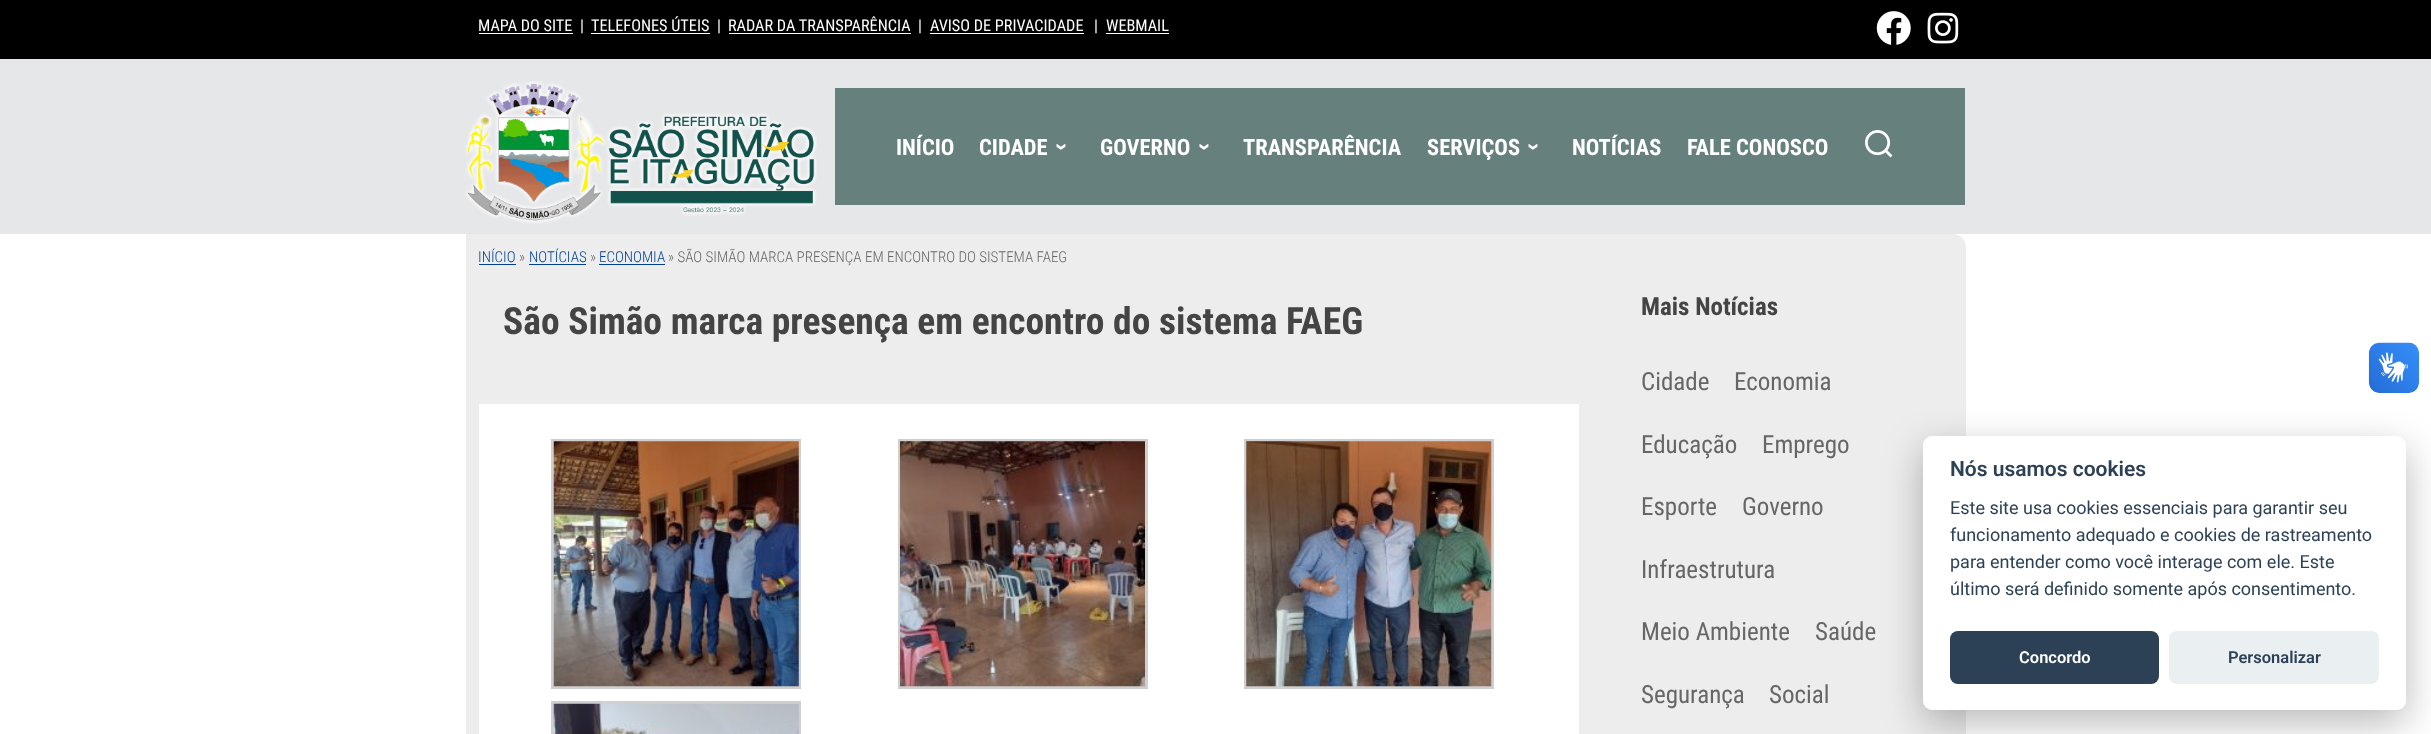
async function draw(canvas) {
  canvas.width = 2431
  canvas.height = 734
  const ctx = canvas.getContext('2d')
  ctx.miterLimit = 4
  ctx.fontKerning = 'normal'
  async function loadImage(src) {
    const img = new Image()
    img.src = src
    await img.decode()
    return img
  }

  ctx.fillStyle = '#fff'
  ctx.fillRect(0, 0, 2431, 734)
  ctx.fillStyle = '#000'
  ctx.fillRect(0, 0, 2431, 59)
  ctx.font = '16.25px Roboto Condensed'
  ctx.fillStyle = '#fff'
  ctx.fillText('MAPA DO SITE', 478, 31)
  ctx.fillRect(479, 33, 94, 1)
  ctx.fillText('|', 580, 31)
  ctx.fillText('TELEFONES ÚTEIS', 591, 31)
  ctx.fillRect(591, 33, 119, 1)
  ctx.fillText('|', 717, 31)
  ctx.fillText('RADAR DA TRANSPARÊNCIA', 728, 31)
  ctx.fillRect(729, 33, 182, 1)
  ctx.fillText('|', 918, 31)
  ctx.fillText('AVISO DE PRIVACIDADE', 930, 31)
  ctx.fillRect(930, 33, 154, 1)
  ctx.fillText('|', 1094, 31)
  ctx.fillText('WEBMAIL', 1106, 31)
  ctx.fillRect(1106, 33, 63, 1)
  ctx.drawImage(await loadImage('image0.png'), 1876, 11, 35, 34)
  ctx.drawImage(await loadImage('image1.png'), 1927, 12, 32, 32)
  ctx.fillStyle = '#e6e7e9'
  ctx.fillRect(0, 59, 2431, 175)
  ctx.drawImage(await loadImage('image2.png'), 465, 81, 352, 143)
  ctx.fillStyle = '#66807d'
  ctx.fillRect(835, 88, 1130, 117)
  ctx.font = 'bold 22.5px Roboto Condensed'
  ctx.fillStyle = '#fff'
  ctx.fillText('INÍCIO', 896, 155)
  ctx.fillText('CIDADE', 979, 155)
  ctx.font = 'bold 22.5px Liberation Sans'
  ctx.save()
  ctx.translate(1055, 143)
  ctx.rotate(90 * Math.PI / 180)
  ctx.fillText('›', 0, 0)
  ctx.restore()
  ctx.font = 'bold 22.5px Roboto Condensed'
  ctx.fillText('GOVERNO', 1100, 155)
  ctx.font = 'bold 22.5px Liberation Sans'
  ctx.save()
  ctx.translate(1198, 143)
  ctx.rotate(90 * Math.PI / 180)
  ctx.fillText('›', 0, 0)
  ctx.restore()
  ctx.font = 'bold 22.5px Roboto Condensed'
  ctx.fillText('TRANSPARÊNCIA', 1243, 155)
  ctx.fillText('SERVIÇOS', 1427, 155)
  ctx.font = 'bold 22.5px Liberation Sans'
  ctx.save()
  ctx.translate(1527, 143)
  ctx.rotate(90 * Math.PI / 180)
  ctx.fillText('›', 0, 0)
  ctx.restore()
  ctx.font = 'bold 22.5px Roboto Condensed'
  ctx.fillText('NOTÍCIAS', 1572, 155)
  ctx.fillText('FALE CONOSCO', 1687, 155)
  ctx.drawImage(await loadImage('image3.png'), 1865, 130, 28, 28)
  ctx.fillStyle = '#ededed'
  ctx.beginPath()
  ctx.moveTo(466, 234)
  ctx.lineTo(1953, 234)
  ctx.bezierCurveTo(1960, 234, 1966, 240, 1966, 247)
  ctx.lineTo(1966, 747)
  ctx.lineTo(466, 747)
  ctx.closePath()
  ctx.fill()
  ctx.font = '300 15px Roboto Condensed'
  ctx.fillStyle = '#024095'
  ctx.fillText('INÍCIO', 478, 262)
  ctx.fillStyle = '#666'
  ctx.fillText('»', 519, 262)
  ctx.fillStyle = '#024095'
  ctx.fillRect(479, 264, 37, 1)
  ctx.fillRect(529, 264, 57, 1)
  ctx.fillText('NOTÍCIAS', 529, 262)
  ctx.fillStyle = '#666'
  ctx.fillText('»', 590, 262)
  ctx.fillStyle = '#024095'
  ctx.fillText('ECONOMIA', 599, 262)
  ctx.fillRect(599, 264, 66, 1)
  ctx.fillStyle = '#666'
  ctx.fillText('» SÃO SIMÃO MARCA PRESENÇA EM ENCONTRO DO SISTEMA FAEG', 668, 262)
  ctx.font = 'bold 37.5px Roboto Condensed'
  ctx.fillStyle = '#444'
  ctx.fillText('São Simão marca presença em encontro do sistema FAEG', 503, 334)
  ctx.fillStyle = '#fff'
  ctx.fillRect(479, 404, 1100, 330)
  ctx.strokeStyle = '#cfcfcf'
  ctx.lineWidth = 3
  ctx.strokeRect(552.5, 440.5, 247, 247)
  ctx.drawImage(await loadImage('image4.png'), 553, 441, 246, 246)
  ctx.strokeRect(899.5, 440.5, 247, 247)
  ctx.drawImage(await loadImage('image5.png'), 900, 441, 245, 246)
  ctx.strokeRect(1245.5, 440.5, 247, 247)
  ctx.drawImage(await loadImage('image6.png'), 1246, 441, 246, 246)
  ctx.strokeRect(552.5, 702.5, 247, 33)
  ctx.drawImage(await loadImage('image7.png'), 553, 703, 246, 31)
  ctx.font = 'bold 25px Roboto Condensed'
  ctx.fillStyle = '#444'
  ctx.fillText('Mais Notícias', 1641, 315)
  ctx.font = '25px Roboto Condensed'
  ctx.fillStyle = '#666'
  ctx.fillText('Cidade', 1641, 390)
  ctx.fillText('Economia', 1734, 390)
  ctx.fillText('Educação', 1641, 453)
  ctx.fillText('Emprego', 1762, 453)
  ctx.fillText('Esporte', 1641, 515)
  ctx.fillText('Governo', 1742, 515)
  ctx.fillText('Infraestrutura', 1641, 578)
  ctx.fillText('Meio Ambiente', 1641, 640)
  ctx.fillText('Saúde', 1815, 640)
  ctx.fillText('Segurança', 1641, 703)
  ctx.fillText('Social', 1769, 703)
  ctx.drawImage(await loadImage('image8.png'), 2368, 342, 51, 51)
  ctx.drawImage(await loadImage('image9.png'), 2369, 343, 50, 50)
  ctx.fillStyle = '#02020347'
  ctx.filter = 'blur(19px)'
  ctx.beginPath()
  ctx.roundRect(1923, 449, 483, 274, 9)
  ctx.fill()
  ctx.filter = 'none'
  ctx.fillStyle = '#fff'
  ctx.beginPath()
  ctx.roundRect(1923, 436, 483, 274, 9)
  ctx.fill()
  ctx.font = '600 21px Roboto'
  ctx.fillStyle = '#2d4156'
  ctx.fillText('Nós usamos cookies', 1950, 476)
  ctx.font = '18px Roboto'
  ctx.fillText('Este site usa cookies essenciais para garantir seu', 1950, 514)
  ctx.fillText('funcionamento adequado e cookies de rastreamento', 1950, 541)
  ctx.fillText('para entender como você interage com ele. Este', 1950, 568)
  ctx.fillText('último será definido somente após consentimento.', 1950, 595)
  ctx.beginPath()
  ctx.roundRect(1950, 631, 209, 53, 8)
  ctx.fill()
  ctx.font = '600 16.5px Roboto'
  ctx.fillStyle = '#fff'
  ctx.fillText('Concordo', 2019, 663)
  ctx.fillStyle = '#eaeff2'
  ctx.beginPath()
  ctx.roundRect(2169, 631, 210, 53, 8)
  ctx.fill()
  ctx.fillStyle = '#2d4156'
  ctx.fillText('Personalizar', 2228, 663)
}

draw(document.querySelector('canvas'))
